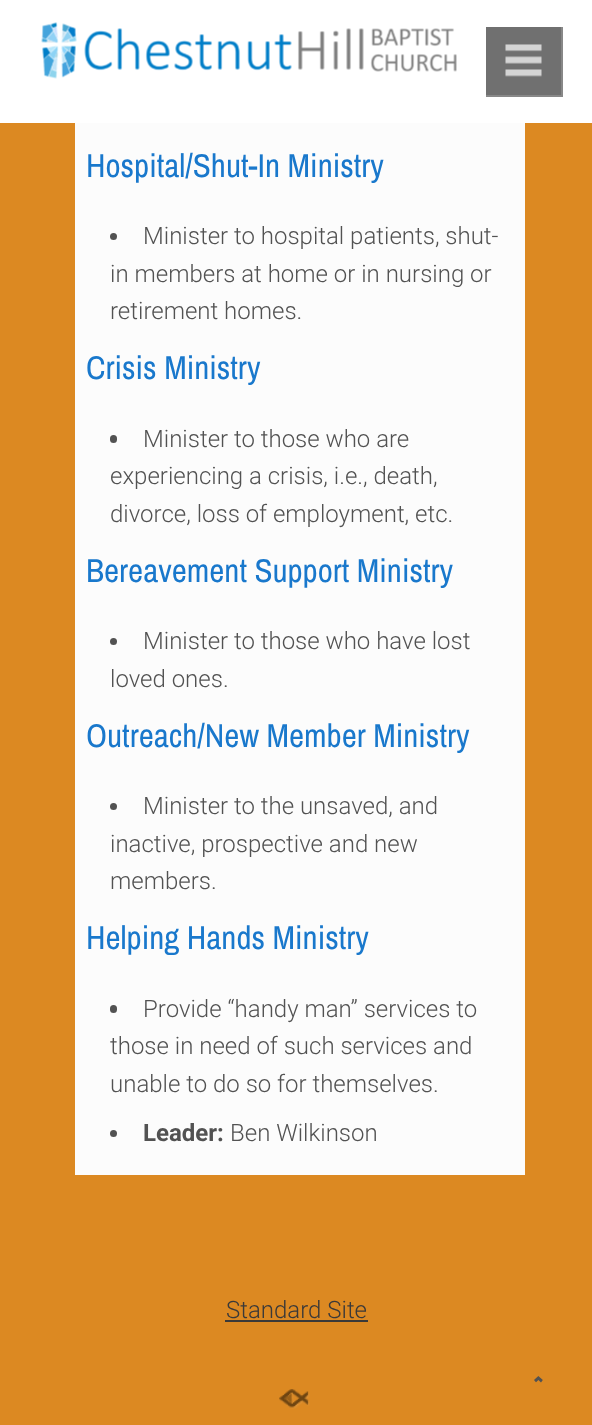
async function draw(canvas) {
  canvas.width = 592
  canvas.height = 1425
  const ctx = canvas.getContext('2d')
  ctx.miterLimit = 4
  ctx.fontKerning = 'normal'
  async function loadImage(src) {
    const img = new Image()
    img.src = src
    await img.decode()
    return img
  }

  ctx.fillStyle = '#dc8922'
  ctx.fillRect(0, 0, 592, 1425)
  ctx.fillStyle = '#fff'
  ctx.fillRect(0, 0, 592, 123)
  ctx.drawImage(await loadImage('image0.png'), 41, 22, 416, 57)
  ctx.fillStyle = '#707070'
  ctx.fillRect(486, 27, 75, 68)
  ctx.drawImage(await loadImage('image1.png'), 505, 44, 37, 33)
  ctx.fillStyle = '#888'
  ctx.fillRect(561, 27, 2, 69)
  ctx.fillRect(486, 95, 77, 2)
  ctx.fillStyle = '#fcfcfc'
  ctx.fillRect(75, 123, 450, 1052)
  ctx.font = '33px Archivo Narrow'
  ctx.fillStyle = '#1978cc'
  ctx.fillText('Hospital/Shut-In Ministry', 86, 177)
  ctx.fillStyle = '#525252'
  ctx.beginPath()
  ctx.arc(113.5, 236.5, 3.5, 0, 2 * Math.PI)
  ctx.fill()
  ctx.font = '300 24px Roboto'
  ctx.fillText('Minister to hospital patients, shut-', 143, 244)
  ctx.fillText('in members at home or in nursing or', 110, 282)
  ctx.fillText('retirement homes.', 110, 319)
  ctx.font = '33px Archivo Narrow'
  ctx.fillStyle = '#1978cc'
  ctx.fillText('Crisis Ministry', 86, 379)
  ctx.fillStyle = '#525252'
  ctx.beginPath()
  ctx.roundRect(110, 435, 7, 8, 3.5)
  ctx.fill()
  ctx.font = '300 24px Roboto'
  ctx.fillText('Minister to those who are', 143, 447)
  ctx.fillText('experiencing a crisis, i.e., death,', 110, 484)
  ctx.fillText('divorce, loss of employment, etc.', 110, 522)
  ctx.font = '33px Archivo Narrow'
  ctx.fillStyle = '#1978cc'
  ctx.fillText('Bereavement Support Ministry', 86, 582)
  ctx.fillStyle = '#525252'
  ctx.beginPath()
  ctx.arc(113.5, 641.5, 3.5, 0, 2 * Math.PI)
  ctx.fill()
  ctx.font = '300 24px Roboto'
  ctx.fillText('Minister to those who have lost', 143, 649)
  ctx.fillText('loved ones.', 110, 687)
  ctx.font = '33px Archivo Narrow'
  ctx.fillStyle = '#1978cc'
  ctx.fillText('Outreach/New Member Ministry', 86, 747)
  ctx.fillStyle = '#525252'
  ctx.beginPath()
  ctx.arc(113.5, 806.5, 3.5, 0, 2 * Math.PI)
  ctx.fill()
  ctx.font = '300 24px Roboto'
  ctx.fillText('Minister to the unsaved, and', 143, 814)
  ctx.fillText('inactive, prospective and new', 110, 852)
  ctx.fillText('members.', 110, 889)
  ctx.font = '33px Archivo Narrow'
  ctx.fillStyle = '#1978cc'
  ctx.fillText('Helping Hands Ministry', 86, 949)
  ctx.fillStyle = '#525252'
  ctx.beginPath()
  ctx.roundRect(110, 1005, 7, 8, 3.5)
  ctx.fill()
  ctx.font = '300 24px Roboto'
  ctx.fillText('Provide “handy man” services to', 143, 1017)
  ctx.fillText('those in need of such services and', 110, 1054)
  ctx.fillText('unable to do so for themselves.', 110, 1092)
  ctx.beginPath()
  ctx.arc(113.5, 1133.5, 3.5, 0, 2 * Math.PI)
  ctx.fill()
  ctx.font = 'bold 24px Roboto'
  ctx.fillText('Leader:', 143, 1141)
  ctx.font = '300 24px Roboto'
  ctx.fillText('Ben Wilkinson', 230, 1141)
  ctx.fillStyle = '#3a3939'
  ctx.fillText('Standard Site', 226, 1318)
  ctx.fillRect(225, 1320, 143, 2)
  ctx.drawImage(await loadImage('image2.png'), 279, 1389, 31, 20)
  ctx.font = '30px Righteous'
  ctx.fillStyle = '#525252'
  ctx.fillText('^', 534, 1397)
}

draw(document.querySelector('canvas'))
